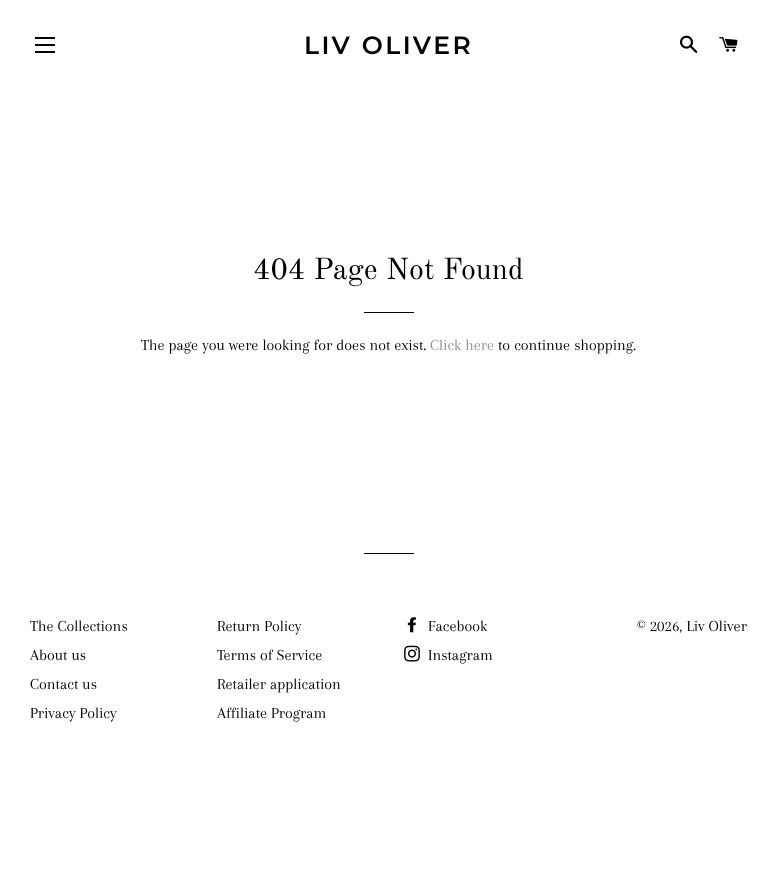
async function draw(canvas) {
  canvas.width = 777
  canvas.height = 870
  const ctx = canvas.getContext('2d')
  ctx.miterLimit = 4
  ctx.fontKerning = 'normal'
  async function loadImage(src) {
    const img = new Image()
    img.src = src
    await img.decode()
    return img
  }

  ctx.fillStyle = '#fff'
  ctx.fillRect(0, 0, 777, 870)
  ctx.fillStyle = '#000'
  ctx.fillRect(35, 37, 20, 2)
  ctx.fillRect(35, 44, 20, 2)
  ctx.fillRect(35, 51, 20, 2)
  ctx.letterSpacing = '2.5px'
  ctx.font = '600 25px Montserrat'
  ctx.fillText('LIV OLIVER', 304, 54)
  ctx.drawImage(await loadImage('image0.png'), 680, 35, 18, 18)
  ctx.drawImage(await loadImage('image1.png'), 719, 37, 19, 15)
  ctx.letterSpacing = '0px'
  ctx.font = '30px Old Standard TT'
  ctx.fillText('404 Page Not Found', 253, 279)
  ctx.fillRect(364, 312, 50, 1)
  ctx.font = '16px Arapey'
  ctx.fillText('The page you were looking for does not exist.', 141, 350)
  ctx.fillStyle = '#988f8f'
  ctx.fillText('Click here', 430, 350)
  ctx.fillStyle = '#000'
  ctx.fillText('to continue shopping.', 498, 350)
  ctx.fillRect(364, 553, 50, 1)
  ctx.fillText('The Collections', 30, 631)
  ctx.fillText('About us', 30, 660)
  ctx.fillText('Contact us', 30, 689)
  ctx.fillText('Privacy Policy', 30, 718)
  ctx.fillText('Return Policy', 217, 631)
  ctx.fillText('Terms of Service', 217, 660)
  ctx.fillText('Retailer application', 217, 689)
  ctx.fillText('Affiliate Program', 217, 718)
  ctx.drawImage(await loadImage('image2.png'), 407, 617, 9, 16)
  ctx.fillText('Facebook', 428, 631)
  ctx.drawImage(await loadImage('image3.png'), 404, 645, 16, 17)
  ctx.fillText('Instagram', 428, 660)
  ctx.fillText('© 2026, Liv Oliver', 637, 631)
}

draw(document.querySelector('canvas'))
